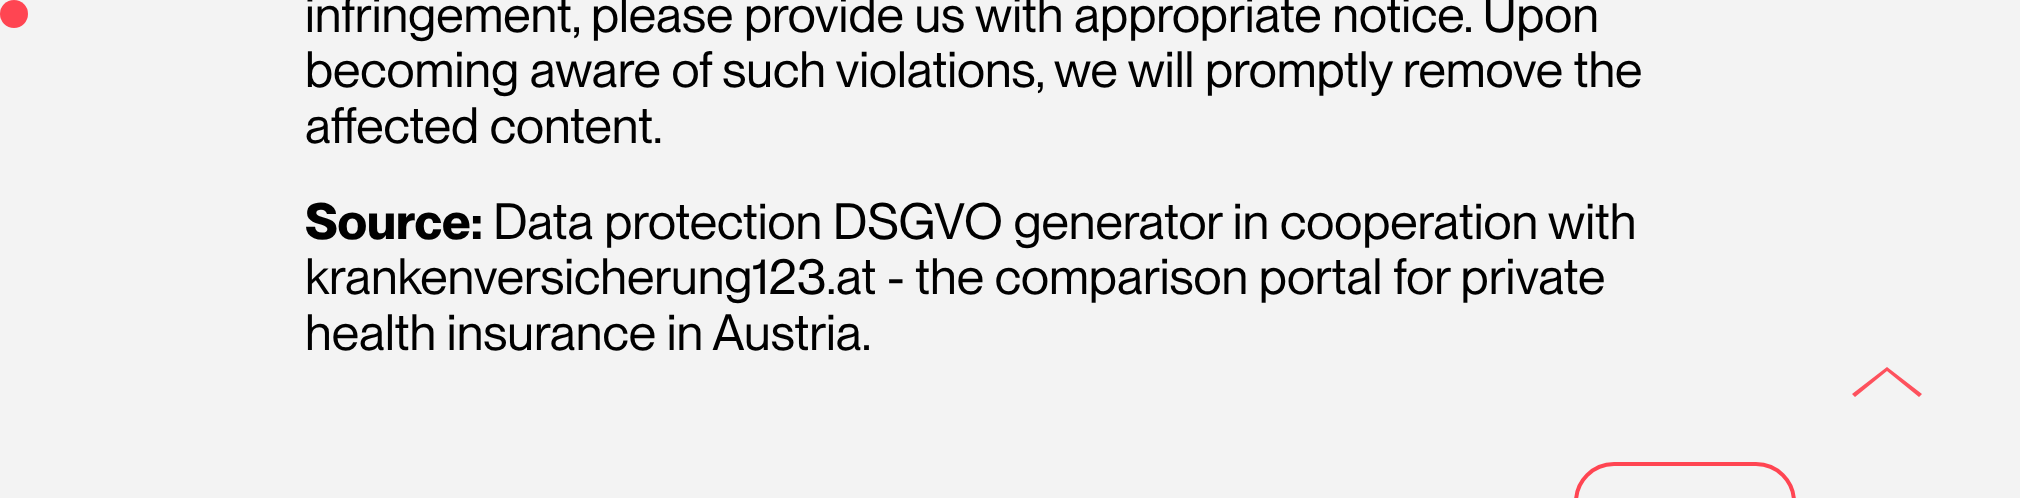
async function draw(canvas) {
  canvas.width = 2020
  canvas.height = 498
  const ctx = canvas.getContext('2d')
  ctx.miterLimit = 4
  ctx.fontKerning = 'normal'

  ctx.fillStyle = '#f3f3f3'
  ctx.fillRect(0, 0, 2020, 498)
  ctx.fillStyle = '#ff4552'
  ctx.beginPath()
  ctx.arc(14, 14, 14, 0, 2 * Math.PI)
  ctx.fill()
  ctx.font = '50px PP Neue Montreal'
  ctx.fillStyle = '#000'
  ctx.fillText('infringement, please provide us with appropriate notice. Upon', 305, 32)
  ctx.fillText('becoming aware of such violations, we will promptly remove the', 305, 87)
  ctx.fillText('affected content.', 305, 143)
  ctx.font = 'bold 50px PP Neue Montreal'
  ctx.fillText('Source:', 305, 239)
  ctx.font = '50px PP Neue Montreal'
  ctx.fillText('Data protection DSGVO generator in cooperation with', 493, 239)
  ctx.fillText('krankenversicherung123.at - the comparison portal for private', 305, 294)
  ctx.fillText('health insurance in Austria.', 305, 350)
  ctx.beginPath()
  ctx.roundRect(1576, 464, 218, 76, 38)
  ctx.strokeStyle = '#ff4552'
  ctx.lineWidth = 4
  ctx.stroke()
  ctx.fillStyle = '#fe515d'
  ctx.beginPath()
  ctx.moveTo(1922, 394)
  ctx.lineTo(1919, 397)
  ctx.lineTo(1887, 371)
  ctx.lineTo(1855, 397)
  ctx.lineTo(1852, 394)
  ctx.lineTo(1887, 367)
  ctx.closePath()
  ctx.fill()
}

draw(document.querySelector('canvas'))
